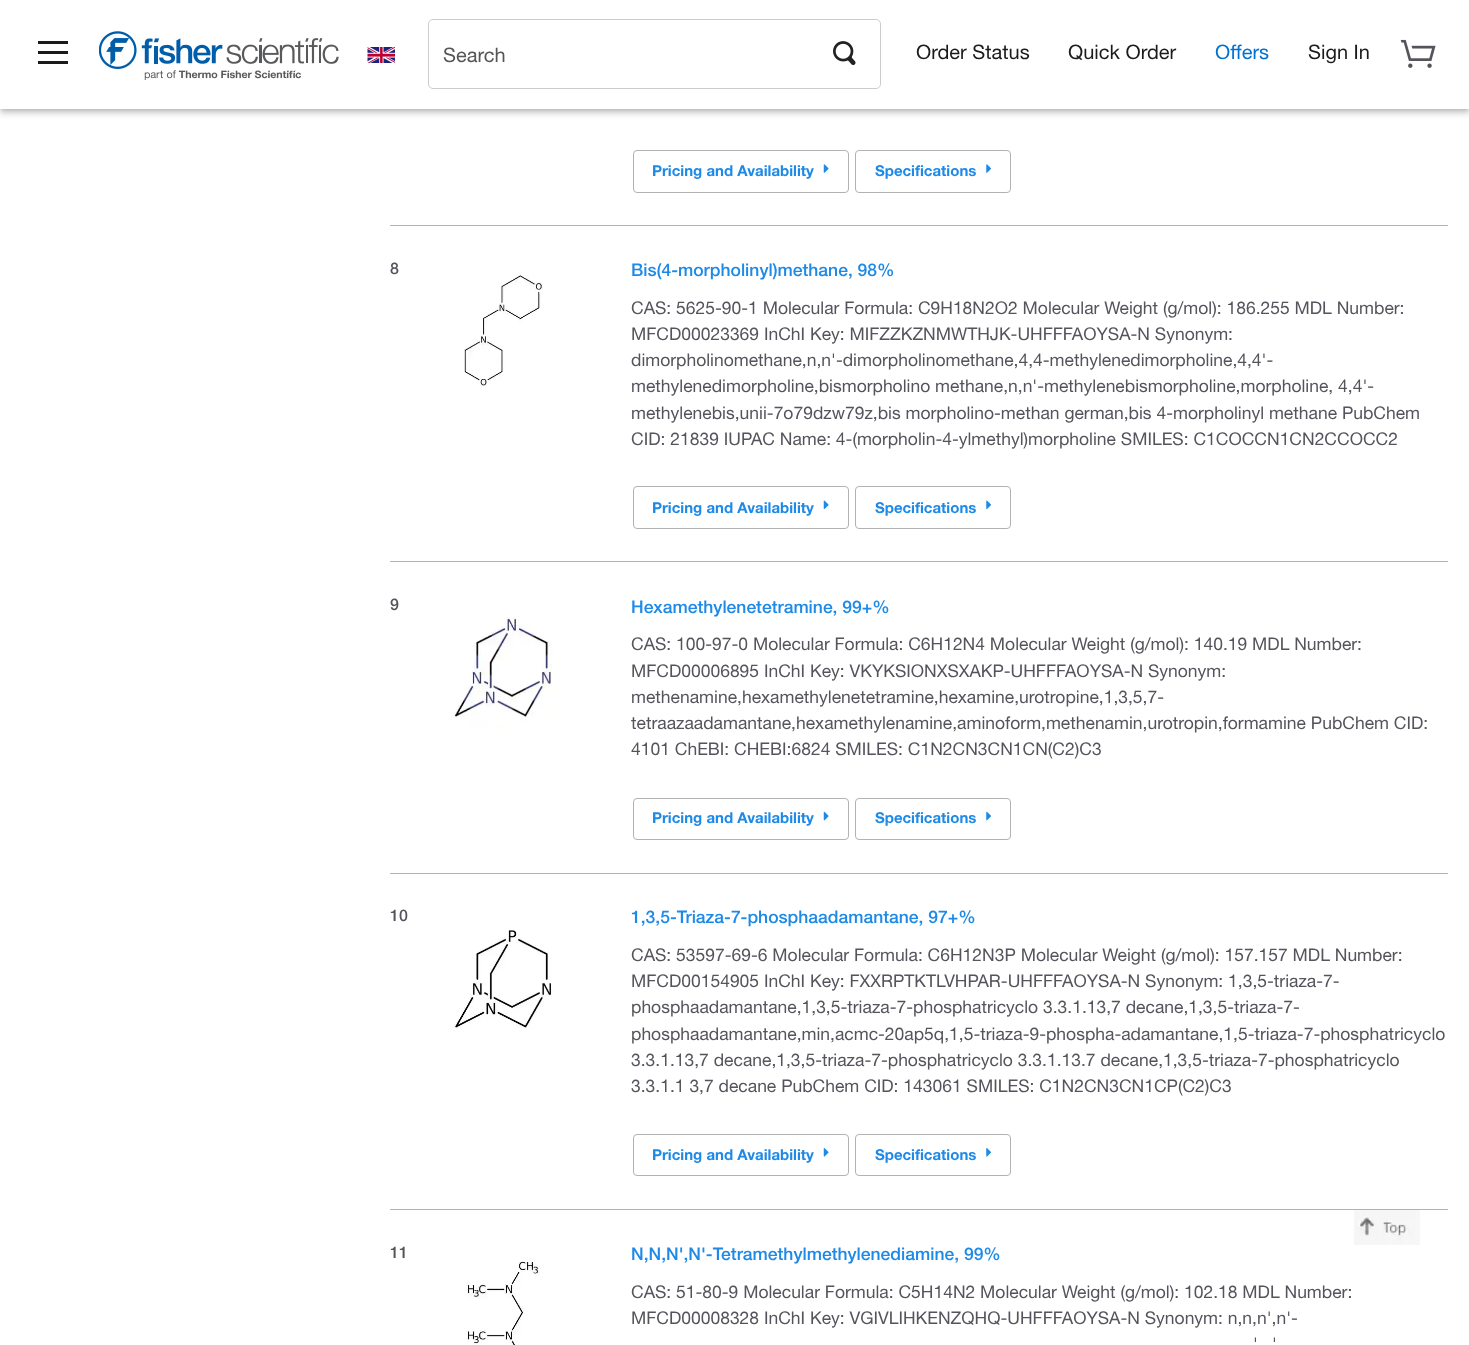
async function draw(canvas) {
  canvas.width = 1469
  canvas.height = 1345
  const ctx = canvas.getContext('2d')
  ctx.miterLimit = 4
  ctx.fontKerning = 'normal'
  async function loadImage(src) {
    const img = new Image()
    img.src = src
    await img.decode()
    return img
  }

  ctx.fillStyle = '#fff'
  ctx.fillRect(0, 0, 1469, 1345)
  ctx.fillStyle = '#00000024'
  ctx.filter = 'blur(3px)'
  ctx.beginPath()
  ctx.rect(0, 5, 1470, 109)
  ctx.fill()
  ctx.filter = 'none'
  ctx.fillStyle = '#00000033'
  ctx.filter = 'blur(2.5px)'
  ctx.beginPath()
  ctx.rect(1, 4, 1468, 106)
  ctx.fill()
  ctx.filter = 'none'
  ctx.fillStyle = '#fff'
  ctx.fillRect(0, 0, 1469, 109)
  ctx.fillStyle = '#1b1b1d'
  ctx.fillRect(38, 51, 30, 3)
  ctx.fillRect(38, 41, 30, 3)
  ctx.fillRect(38, 61, 30, 3)
  ctx.drawImage(await loadImage('image0.png'), 99, 31, 240, 49)
  ctx.drawImage(await loadImage('image1.png'), 367, 47, 28, 16)
  ctx.beginPath()
  ctx.roundRect(428.5, 19.5, 452, 69, 4.5)
  ctx.strokeStyle = '#ccc'
  ctx.stroke()
  ctx.font = '20px Helvetica Neue'
  ctx.fillStyle = '#565656'
  ctx.fillText('Search', 443, 62)
  ctx.drawImage(await loadImage('image2.png'), 833, 41, 23, 24)
  ctx.fillStyle = '#1b1b1d'
  ctx.fillText('Order Status', 916, 59)
  ctx.fillText('Quick Order', 1068, 59)
  ctx.fillStyle = '#0071d0'
  ctx.fillText('Offers', 1215, 59)
  ctx.fillStyle = '#1b1b1d'
  ctx.fillText('Sign In', 1308, 59)
  ctx.drawImage(await loadImage('image3.png'), 1400, 39, 36, 29)
  ctx.fillStyle = '#b2b2b2'
  ctx.fillRect(390, 225, 1058, 1)
  ctx.beginPath()
  ctx.roundRect(633.5, 150.5, 215, 42, 3.5)
  ctx.strokeStyle = '#b2b2b2'
  ctx.stroke()
  ctx.font = 'bold 15px Helvetica Neue'
  ctx.fillStyle = '#1e8ae7'
  ctx.fillText('Pricing and Availability', 652, 176)
  ctx.drawImage(await loadImage('image4.png'), 823, 164, 6, 9)
  ctx.beginPath()
  ctx.roundRect(855.5, 150.5, 155, 42, 3.5)
  ctx.stroke()
  ctx.fillText('Specifications', 875, 176)
  ctx.drawImage(await loadImage('image5.png'), 986, 164, 5, 9)
  ctx.fillStyle = '#b2b2b2'
  ctx.fillRect(390, 561, 1058, 1)
  ctx.font = '500 16px Helvetica Neue'
  ctx.fillStyle = '#54545c'
  ctx.fillText('8', 390, 274)
  ctx.drawImage(await loadImage('image6.png'), 464, 274, 79, 113)
  ctx.font = '500 17.5px Helvetica Neue'
  ctx.fillStyle = '#1e8ae7'
  ctx.fillText('Bis(4-morpholinyl)methane, 98%', 631, 276)
  ctx.font = '17.5px Helvetica Neue'
  ctx.fillStyle = '#54545c'
  ctx.fillText('CAS: 5625-90-1 Molecular Formula: C9H18N2O2 Molecular Weight (g/mol): 186.255 MDL Number:', 631, 314)
  ctx.fillText('MFCD00023369 InChI Key: MIFZZKZNMWTHJK-UHFFFAOYSA-N Synonym:', 631, 340)
  ctx.fillText('dimorpholinomethane,n,n\'-dimorpholinomethane,4,4-methylenedimorpholine,4,4\'-', 631, 366)
  ctx.fillText('methylenedimorpholine,bismorpholino methane,n,n\'-methylenebismorpholine,morpholine, 4,4\'-', 631, 392)
  ctx.fillText('methylenebis,unii-7o79dzw79z,bis morpholino-methan german,bis 4-morpholinyl methane PubChem', 631, 419)
  ctx.fillText('CID: 21839 IUPAC Name: 4-(morpholin-4-ylmethyl)morpholine SMILES: C1COCCN1CN2CCOCC2', 631, 445)
  ctx.beginPath()
  ctx.roundRect(633.5, 486.5, 215, 42, 3.5)
  ctx.stroke()
  ctx.font = 'bold 15px Helvetica Neue'
  ctx.fillStyle = '#1e8ae7'
  ctx.fillText('Pricing and Availability', 652, 513)
  ctx.drawImage(await loadImage('image7.png'), 823, 500, 6, 10)
  ctx.beginPath()
  ctx.roundRect(855.5, 486.5, 155, 42, 3.5)
  ctx.stroke()
  ctx.fillText('Specifications', 875, 513)
  ctx.drawImage(await loadImage('image8.png'), 986, 500, 5, 10)
  ctx.fillStyle = '#b2b2b2'
  ctx.fillRect(390, 873, 1058, 1)
  ctx.font = '500 16px Helvetica Neue'
  ctx.fillStyle = '#54545c'
  ctx.fillText('9', 390, 610)
  ctx.drawImage(await loadImage('image9.png'), 454, 616, 103, 111)
  ctx.font = '500 17.5px Helvetica Neue'
  ctx.fillStyle = '#1e8ae7'
  ctx.fillText('Hexamethylenetetramine, 99+%', 631, 613)
  ctx.font = '17.5px Helvetica Neue'
  ctx.fillStyle = '#54545c'
  ctx.fillText('CAS: 100-97-0 Molecular Formula: C6H12N4 Molecular Weight (g/mol): 140.19 MDL Number:', 631, 650)
  ctx.fillText('MFCD00006895 InChI Key: VKYKSIONXSXAKP-UHFFFAOYSA-N Synonym:', 631, 677)
  ctx.fillText('methenamine,hexamethylenetetramine,hexamine,urotropine,1,3,5,7-', 631, 703)
  ctx.fillText('tetraazaadamantane,hexamethylenamine,aminoform,methenamin,urotropin,formamine PubChem CID:', 631, 729)
  ctx.fillText('4101 ChEBI: CHEBI:6824 SMILES: C1N2CN3CN1CN(C2)C3', 631, 755)
  ctx.beginPath()
  ctx.roundRect(633.5, 798.5, 215, 41, 3.5)
  ctx.stroke()
  ctx.font = 'bold 15px Helvetica Neue'
  ctx.fillStyle = '#1e8ae7'
  ctx.fillText('Pricing and Availability', 652, 823)
  ctx.drawImage(await loadImage('image10.png'), 823, 811, 6, 10)
  ctx.beginPath()
  ctx.roundRect(855.5, 798.5, 155, 41, 3.5)
  ctx.stroke()
  ctx.fillText('Specifications', 875, 823)
  ctx.drawImage(await loadImage('image11.png'), 986, 811, 5, 10)
  ctx.fillStyle = '#b2b2b2'
  ctx.fillRect(390, 1209, 1058, 1)
  ctx.font = '500 16px Helvetica Neue'
  ctx.fillStyle = '#54545c'
  ctx.fillText('10', 390, 921)
  ctx.drawImage(await loadImage('image12.png'), 454, 930, 99, 98)
  ctx.font = '500 17.5px Helvetica Neue'
  ctx.fillStyle = '#1e8ae7'
  ctx.fillText('1,3,5-Triaza-7-phosphaadamantane, 97+%', 631, 923)
  ctx.font = '17.5px Helvetica Neue'
  ctx.fillStyle = '#54545c'
  ctx.fillText('CAS: 53597-69-6 Molecular Formula: C6H12N3P Molecular Weight (g/mol): 157.157 MDL Number:', 631, 961)
  ctx.fillText('MFCD00154905 InChI Key: FXXRPTKTLVHPAR-UHFFFAOYSA-N Synonym: 1,3,5-triaza-7-', 631, 987)
  ctx.fillText('phosphaadamantane,1,3,5-triaza-7-phosphatricyclo 3.3.1.13,7 decane,1,3,5-triaza-7-', 631, 1013)
  ctx.fillText('phosphaadamantane,min,acmc-20ap5q,1,5-triaza-9-phospha-adamantane,1,5-triaza-7-phosphatricyclo', 631, 1040)
  ctx.fillText('3.3.1.13,7 decane,1,3,5-triaza-7-phosphatricyclo 3.3.1.13.7 decane,1,3,5-triaza-7-phosphatricyclo', 631, 1066)
  ctx.fillText('3.3.1.1 3,7 decane PubChem CID: 143061 SMILES: C1N2CN3CN1CP(C2)C3', 631, 1092)
  ctx.beginPath()
  ctx.roundRect(633.5, 1134.5, 215, 41, 3.5)
  ctx.stroke()
  ctx.font = 'bold 15px Helvetica Neue'
  ctx.fillStyle = '#1e8ae7'
  ctx.fillText('Pricing and Availability', 652, 1160)
  ctx.drawImage(await loadImage('image13.png'), 823, 1148, 6, 9)
  ctx.beginPath()
  ctx.roundRect(855.5, 1134.5, 155, 41, 3.5)
  ctx.stroke()
  ctx.fillText('Specifications', 875, 1160)
  ctx.drawImage(await loadImage('image14.png'), 986, 1148, 5, 9)
  ctx.drawImage(await loadImage('image15.png'), 1354, 1210, 66, 35)
  ctx.font = '500 16px Helvetica Neue'
  ctx.fillStyle = '#54545c'
  ctx.fillText('11', 390, 1258)
  ctx.drawImage(await loadImage('image16.png'), 466, 1261, 74, 84)
  ctx.font = '500 17.5px Helvetica Neue'
  ctx.fillStyle = '#1e8ae7'
  ctx.fillText('N,N,N\',N\'-Tetramethylmethylenediamine, 99%', 631, 1260)
  ctx.font = '17.5px Helvetica Neue'
  ctx.fillStyle = '#54545c'
  ctx.fillText('CAS: 51-80-9 Molecular Formula: C5H14N2 Molecular Weight (g/mol): 102.18 MDL Number:', 631, 1298)
  ctx.fillText('MFCD00008328 InChI Key: VGIVLIHKENZQHQ-UHFFFAOYSA-N Synonym: n,n,n\',n\'-', 631, 1324)
  ctx.fillText('\'', 1253, 1350)
  ctx.fillText('\'', 1272, 1350)
}

draw(document.querySelector('canvas'))
